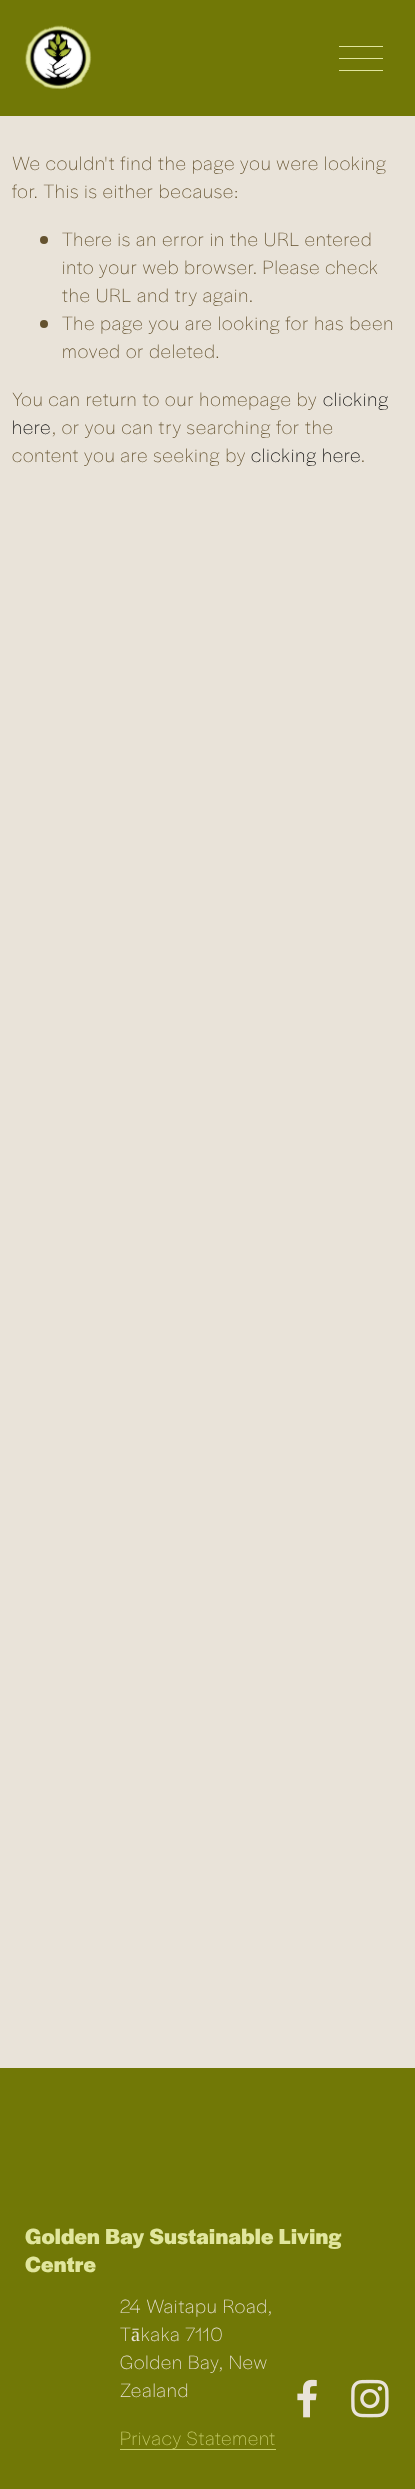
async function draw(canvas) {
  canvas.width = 415
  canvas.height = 2489
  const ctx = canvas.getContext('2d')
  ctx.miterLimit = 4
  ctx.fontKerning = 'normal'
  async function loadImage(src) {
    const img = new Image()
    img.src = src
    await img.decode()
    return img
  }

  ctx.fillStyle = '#e9e3d9'
  ctx.fillRect(0, 0, 415, 2489)
  ctx.fillStyle = '#717806'
  ctx.fillRect(0, 0, 415, 116)
  ctx.drawImage(await loadImage('image0.png'), 25, 25, 67, 65)
  ctx.fillStyle = '#e1e69d'
  ctx.fillRect(339, 46, 44, 1)
  ctx.fillRect(339, 58, 44, 1)
  ctx.fillRect(339, 70, 44, 1)
  ctx.letterSpacing = '1px'
  ctx.font = '200 20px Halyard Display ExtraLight'
  ctx.fillStyle = '#64522f'
  ctx.fillText('We couldn\'t find the page you were looking', 12, 170)
  ctx.fillText('for. This is either because:', 12, 198)
  ctx.beginPath()
  ctx.arc(44, 240, 4, 0, 2 * Math.PI)
  ctx.fill()
  ctx.fillText('There is an error in the URL entered', 62, 246)
  ctx.fillText('into your web browser. Please check', 62, 274)
  ctx.fillText('the URL and try again.', 62, 302)
  ctx.beginPath()
  ctx.arc(44, 324, 4, 0, 2 * Math.PI)
  ctx.fill()
  ctx.fillText('The page you are looking for has been', 62, 330)
  ctx.fillText('moved or deleted.', 62, 358)
  ctx.fillText('You can return to our homepage by', 12, 406)
  ctx.fillStyle = '#000'
  ctx.fillText('clicking', 323, 406)
  ctx.fillText('here', 12, 434)
  ctx.fillStyle = '#64522f'
  ctx.fillText(', or you can try searching for the', 52, 434)
  ctx.fillText('content you are seeking by', 12, 462)
  ctx.fillStyle = '#000'
  ctx.fillText('clicking here', 251, 462)
  ctx.fillStyle = '#64522f'
  ctx.fillText('.', 361, 462)
  ctx.fillStyle = '#717806'
  ctx.fillRect(0, 2068, 415, 421)
  ctx.letterSpacing = '0.45px'
  ctx.font = 'bold 22.75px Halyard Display'
  ctx.fillStyle = '#e1e69d'
  ctx.fillText('Golden Bay Sustainable Living', 25, 2244)
  ctx.fillText('Centre', 25, 2272)
  ctx.letterSpacing = '1px'
  ctx.font = '200 20px Halyard Display ExtraLight'
  ctx.fillStyle = '#e9e3d9'
  ctx.fillText('24 Waitapu Road,', 120, 2313)
  ctx.fillText('T', 120, 2341)
  ctx.font = '20px Liberation Serif'
  ctx.fillText('ā', 131, 2341)
  ctx.font = '200 20px Halyard Display ExtraLight'
  ctx.fillText('kaka 7110', 141, 2341)
  ctx.fillText('Golden Bay, New', 120, 2369)
  ctx.fillText('Zealand', 120, 2397)
  ctx.fillStyle = '#c7cd6b'
  ctx.fillText('Privacy Statement', 120, 2445)
  ctx.fillRect(120, 2449, 156, 1)
  ctx.drawImage(await loadImage('image1.png'), 297, 2379, 20, 39)
  ctx.drawImage(await loadImage('image2.png'), 351, 2379, 38, 39)
}

draw(document.querySelector('canvas'))
